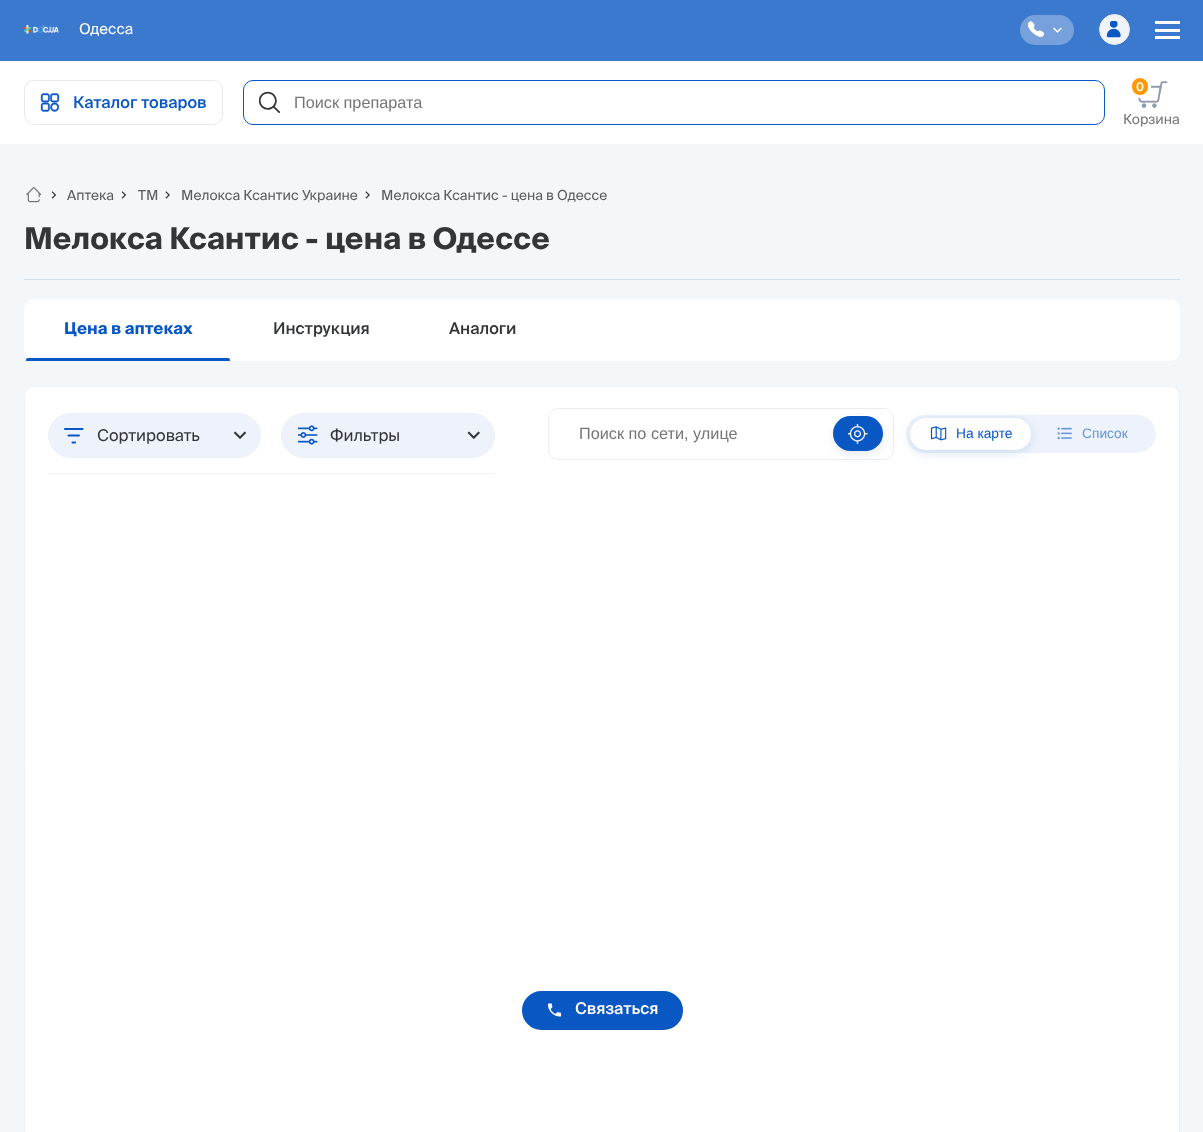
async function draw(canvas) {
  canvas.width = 1203
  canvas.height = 1132
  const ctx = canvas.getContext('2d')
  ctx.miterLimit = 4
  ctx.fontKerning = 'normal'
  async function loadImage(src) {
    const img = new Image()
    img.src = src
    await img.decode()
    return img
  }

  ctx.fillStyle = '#f4f7fa'
  ctx.fillRect(0, 0, 1203, 1132)
  ctx.fillStyle = '#3b79cf'
  ctx.fillRect(0, 0, 1203, 61)
  ctx.drawImage(await loadImage('image0.png'), 23, 25, 36, 9)
  ctx.font = '15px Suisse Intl'
  ctx.fillStyle = '#fff'
  ctx.fillText('Одесса', 79, 34)
  ctx.fillStyle = '#76a1dd'
  ctx.beginPath()
  ctx.roundRect(1020, 15, 54, 30, 15)
  ctx.fill()
  ctx.drawImage(await loadImage('image1.png'), 1028, 21, 16, 17)
  ctx.drawImage(await loadImage('image2.png'), 1053, 27, 9, 6)
  ctx.fillStyle = '#f0f4f8'
  ctx.beginPath()
  ctx.arc(1114.5, 29.5, 15, 0, 2 * Math.PI)
  ctx.fill()
  ctx.strokeStyle = '#e8e8e8'
  ctx.stroke()
  ctx.drawImage(await loadImage('image3.png'), 1106, 21, 15, 17)
  ctx.fillStyle = '#fff'
  ctx.fillRect(1155, 21, 25, 3)
  ctx.fillRect(1155, 29, 25, 3)
  ctx.fillRect(1155, 36, 25, 3)
  ctx.beginPath()
  ctx.roundRect(24.5, 386.5, 1155, 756, 9.5)
  ctx.fill()
  ctx.strokeStyle = '#eff1f6'
  ctx.stroke()
  ctx.fillStyle = '#0957c3'
  ctx.beginPath()
  ctx.roundRect(520.5, 989.5, 164, 42, 21)
  ctx.fill()
  ctx.strokeStyle = '#fff'
  ctx.lineWidth = 3
  ctx.stroke()
  ctx.drawImage(await loadImage('image4.png'), 547, 1003, 15, 14)
  ctx.font = '500 16.25px Suisse Intl'
  ctx.fillStyle = '#fff'
  ctx.fillText('Связаться', 575, 1014)
  ctx.fillRect(0, 61, 1203, 83)
  ctx.beginPath()
  ctx.roundRect(24.5, 80.5, 198, 44, 9.5)
  ctx.strokeStyle = '#e7e8eb'
  ctx.lineWidth = 1
  ctx.stroke()
  ctx.drawImage(await loadImage('image5.png'), 40, 93, 20, 19)
  ctx.fillStyle = '#0957c3'
  ctx.fillText('Каталог товаров', 73, 108)
  ctx.beginPath()
  ctx.roundRect(243.5, 80.5, 861, 44, 9.5)
  ctx.strokeStyle = '#0957c3'
  ctx.stroke()
  ctx.drawImage(await loadImage('image6.png'), 259, 91, 21, 22)
  ctx.font = '16.25px Liberation Sans'
  ctx.fillStyle = '#757575'
  ctx.fillText('Поиск препарата', 294, 108)
  ctx.drawImage(await loadImage('image7.png'), 1138, 81, 30, 27)
  ctx.fillStyle = '#fd9904'
  ctx.beginPath()
  ctx.roundRect(1130.5, 76.5, 19, 20, 9.5)
  ctx.fill()
  ctx.strokeStyle = '#fff'
  ctx.lineWidth = 3
  ctx.stroke()
  ctx.font = '600 12px Suisse Intl'
  ctx.fillStyle = '#fff'
  ctx.fillText('0', 1136, 91)
  ctx.font = '13.75px Suisse Intl'
  ctx.fillStyle = '#757575'
  ctx.fillText('Корзина', 1123, 124)
  ctx.drawImage(await loadImage('image8.png'), 26, 187, 16, 16)
  ctx.drawImage(await loadImage('image9.png'), 51, 191, 6, 8)
  ctx.fillStyle = '#5a5b5d'
  ctx.fillText('Аптека', 67, 200)
  ctx.drawImage(await loadImage('image9.png'), 121, 191, 6, 8)
  ctx.fillText('ТМ', 138, 200)
  ctx.drawImage(await loadImage('image10.png'), 165, 191, 5, 8)
  ctx.fillText('Мелокса Ксантис Украине', 181, 200)
  ctx.drawImage(await loadImage('image10.png'), 365, 191, 5, 8)
  ctx.fillText('Мелокса Ксантис - цена в Одессе', 381, 200)
  ctx.fillStyle = '#d1dfec'
  ctx.fillRect(24, 279, 1156, 1)
  ctx.font = 'bold 30px Suisse Intl'
  ctx.fillStyle = '#333536'
  ctx.fillText('Мелокса Ксантис - цена в Одессе', 24, 249)
  ctx.fillStyle = '#fff'
  ctx.beginPath()
  ctx.roundRect(24, 299, 1156, 62, 10)
  ctx.fill()
  ctx.font = 'bold 16.25px Suisse Intl'
  ctx.fillStyle = '#0957c3'
  ctx.fillText('Цена в аптеках', 64, 334)
  ctx.save()
  ctx.beginPath()
  ctx.rect(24, 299, 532, 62)
  ctx.clip()
  ctx.fillStyle = '#0957c333'
  ctx.filter = 'blur(2px)'
  ctx.beginPath()
  ctx.roundRect(26, 359, 204, 4, 2)
  ctx.fill()
  ctx.filter = 'none'
  ctx.restore()
  ctx.save()
  ctx.beginPath()
  ctx.rect(24, 299, 532, 62)
  ctx.clip()
  ctx.beginPath()
  ctx.roundRect(26, 358, 204, 4, 2)
  ctx.fill()
  ctx.restore()
  ctx.font = '500 16.25px Suisse Intl'
  ctx.fillStyle = '#333536'
  ctx.fillText('Инструкция', 273, 334)
  ctx.fillText('Аналоги', 449, 334)
  ctx.fillStyle = '#ebeff6'
  ctx.fillRect(48, 473, 447, 1)
  ctx.fillStyle = '#eef3fb'
  ctx.beginPath()
  ctx.roundRect(48.5, 413.5, 212, 44, 22)
  ctx.fill()
  ctx.strokeStyle = '#eff1f6'
  ctx.lineWidth = 1
  ctx.stroke()
  ctx.beginPath()
  ctx.moveTo(65, 429)
  ctx.lineTo(82.5, 429)
  ctx.moveTo(68.5, 435.5)
  ctx.lineTo(79, 435.5)
  ctx.moveTo(72.5, 442.5)
  ctx.lineTo(75, 442.5)
  ctx.strokeStyle = '#0957c3'
  ctx.lineWidth = 2.1
  ctx.lineCap = 'round'
  ctx.lineJoin = 'round'
  ctx.stroke()
  ctx.font = '16.25px Suisse Intl'
  ctx.fillStyle = '#333536'
  ctx.fillText('Сортировать', 97, 441)
  ctx.drawImage(await loadImage('image11.png'), 233, 431, 14, 8)
  ctx.fillStyle = '#eef3fb'
  ctx.beginPath()
  ctx.roundRect(281.5, 413.5, 213, 44, 22)
  ctx.fill()
  ctx.strokeStyle = '#eff1f6'
  ctx.lineWidth = 1
  ctx.lineJoin = 'miter'
  ctx.stroke()
  ctx.drawImage(await loadImage('image12.png'), 298, 425, 20, 20)
  ctx.fillStyle = '#333536'
  ctx.fillText('Фильтры', 330, 441)
  ctx.drawImage(await loadImage('image13.png'), 467, 431, 13, 8)
  ctx.beginPath()
  ctx.roundRect(548.5, 408.5, 345, 51, 9.5)
  ctx.strokeStyle = '#ecedf0'
  ctx.stroke()
  ctx.font = '16.25px Liberation Sans'
  ctx.fillStyle = '#757575'
  ctx.fillText('Поиск по сети, улице', 579, 439)
  ctx.fillStyle = '#0e37701a'
  ctx.filter = 'blur(4px)'
  ctx.beginPath()
  ctx.roundRect(833, 420, 50, 35, 17.5)
  ctx.fill()
  ctx.filter = 'none'
  ctx.fillStyle = '#0957c3'
  ctx.beginPath()
  ctx.roundRect(833, 416, 50, 35, 17.5)
  ctx.fill()
  ctx.drawImage(await loadImage('image14.png'), 848, 424, 20, 20)
  ctx.fillStyle = '#eef3fb'
  ctx.beginPath()
  ctx.roundRect(906, 415, 250, 38, 19)
  ctx.fill()
  ctx.fillStyle = '#5280be33'
  ctx.filter = 'blur(6px)'
  ctx.beginPath()
  ctx.roundRect(910, 420, 121, 33, 16.5)
  ctx.fill()
  ctx.filter = 'none'
  ctx.fillStyle = '#fefefe'
  ctx.beginPath()
  ctx.roundRect(910, 418, 121, 32, 16)
  ctx.fill()
  ctx.drawImage(await loadImage('image15.png'), 930, 426, 17, 15)
  ctx.font = '13.75px Liberation Sans'
  ctx.fillStyle = '#0957c3'
  ctx.fillText('На карте', 956, 438)
  ctx.drawImage(await loadImage('image16.png'), 1057, 427, 15, 13)
  ctx.fillStyle = '#6595d9'
  ctx.fillText('Список', 1082, 438)
}

draw(document.querySelector('canvas'))
